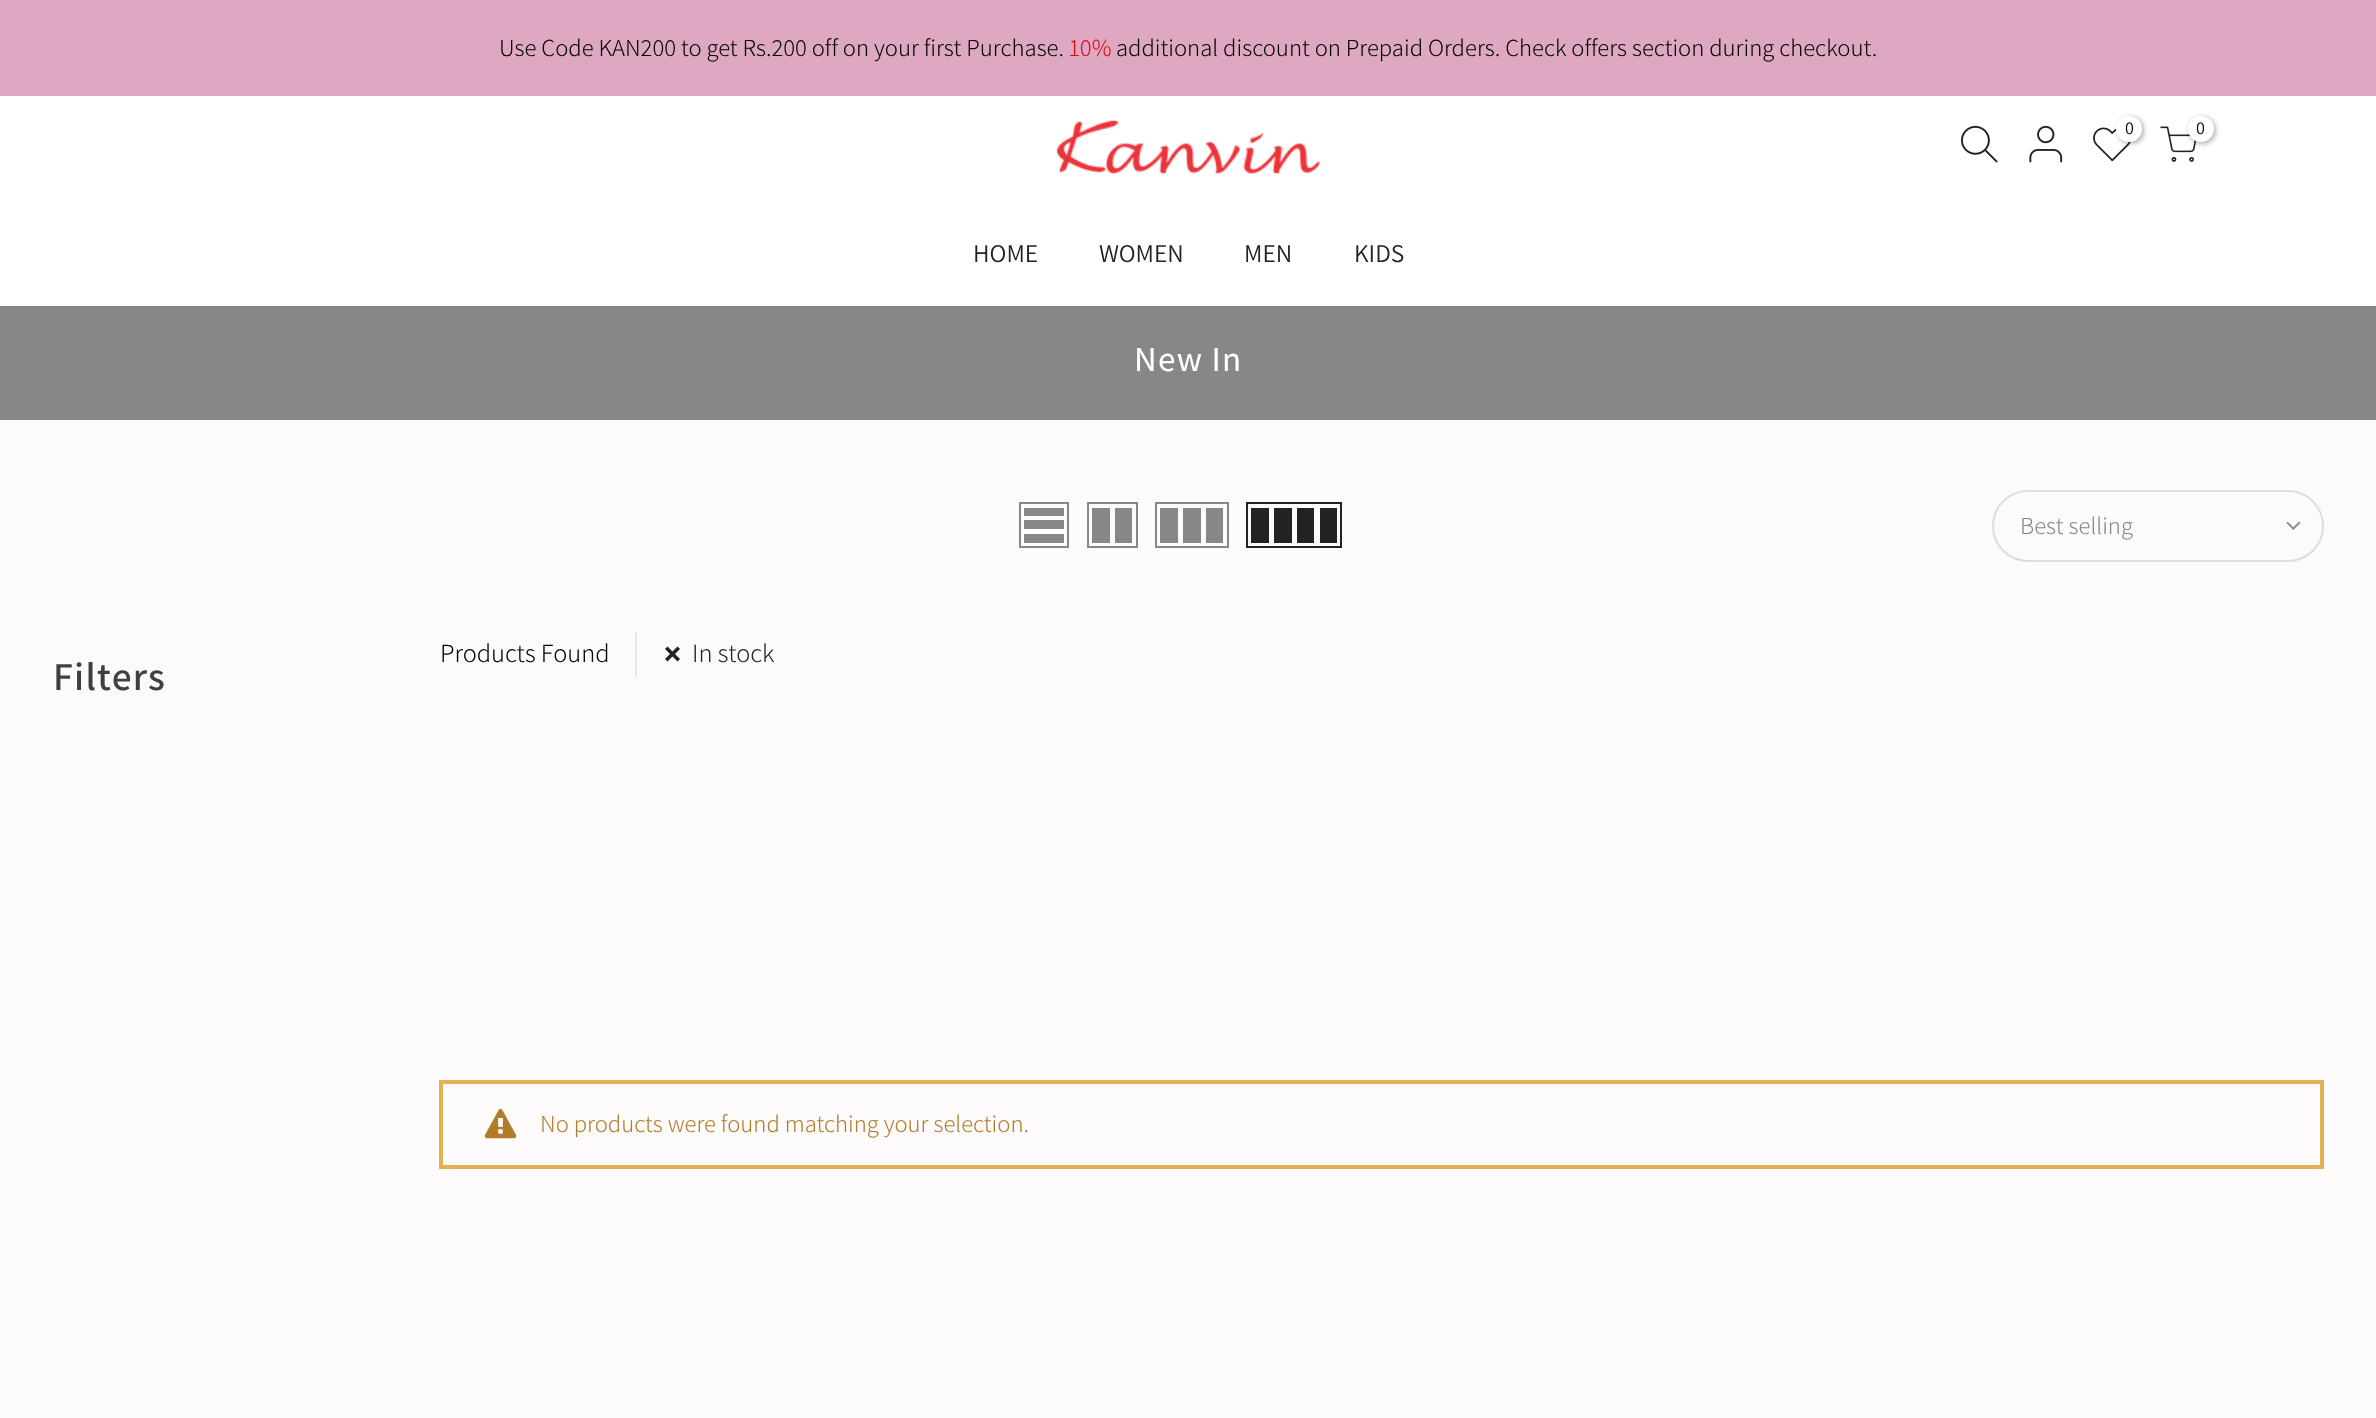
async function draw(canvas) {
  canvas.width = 2376
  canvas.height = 1418
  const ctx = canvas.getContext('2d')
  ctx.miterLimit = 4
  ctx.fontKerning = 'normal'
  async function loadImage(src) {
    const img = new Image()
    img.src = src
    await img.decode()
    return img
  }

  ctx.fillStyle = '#fcfafa'
  ctx.fillRect(0, 0, 2376, 1418)
  ctx.fillStyle = '#dea8c2'
  ctx.fillRect(0, 0, 2376, 96)
  ctx.font = '300 24.5px Assistant'
  ctx.fillStyle = '#000'
  ctx.fillText('Use Code KAN200 to get Rs.200 off on your first Purchase.', 499, 56)
  ctx.fillStyle = '#ec0101'
  ctx.fillText('10%', 1069, 56)
  ctx.fillStyle = '#000'
  ctx.fillText('additional discount on Prepaid Orders. Check offers section during checkout.', 1116, 56)
  ctx.fillStyle = '#fff'
  ctx.fillRect(0, 96, 2376, 210)
  ctx.drawImage(await loadImage('image0.png'), 1057, 120, 263, 54)
  ctx.drawImage(await loadImage('image1.png'), 1961, 125, 37, 38)
  ctx.drawImage(await loadImage('image2.png'), 2029, 125, 34, 38)
  ctx.drawImage(await loadImage('image3.png'), 2093, 127, 38, 35)
  ctx.fillStyle = '#0000004d'
  ctx.filter = 'blur(2.5px)'
  ctx.beginPath()
  ctx.roundRect(2118, 117, 26, 27, 13)
  ctx.fill()
  ctx.filter = 'none'
  ctx.fillStyle = '#fff'
  ctx.beginPath()
  ctx.arc(2129, 129, 13, 0, 2 * Math.PI)
  ctx.fill()
  ctx.font = '18px Assistant'
  ctx.fillStyle = '#000'
  ctx.fillText('0', 2125, 134)
  ctx.drawImage(await loadImage('image4.png'), 2160, 126, 37, 36)
  ctx.fillStyle = '#0000004d'
  ctx.filter = 'blur(2.5px)'
  ctx.beginPath()
  ctx.roundRect(2189, 117, 27, 27, 13.5)
  ctx.fill()
  ctx.filter = 'none'
  ctx.fillStyle = '#fff'
  ctx.beginPath()
  ctx.arc(2201, 129, 13, 0, 2 * Math.PI)
  ctx.fill()
  ctx.fillStyle = '#000'
  ctx.fillText('0', 2196, 134)
  ctx.font = '25.5px Assistant'
  ctx.fillStyle = '#222'
  ctx.fillText('HOME', 973, 262)
  ctx.fillText('WOMEN', 1099, 262)
  ctx.fillText('MEN', 1244, 262)
  ctx.fillText('KIDS', 1354, 262)
  ctx.fillStyle = '#888686'
  ctx.fillRect(0, 306, 2376, 114)
  ctx.letterSpacing = '1.25px'
  ctx.font = '500 35px Assistant'
  ctx.fillStyle = '#fff'
  ctx.fillText('New In', 1134, 371)
  ctx.strokeStyle = '#878787'
  ctx.lineWidth = 2
  ctx.strokeRect(1020, 503, 48, 44)
  ctx.fillStyle = '#878787'
  ctx.fillRect(1024, 534, 40, 9)
  ctx.fillRect(1024, 520, 40, 9)
  ctx.fillRect(1024, 508, 40, 8)
  ctx.strokeRect(1088, 503, 49, 44)
  ctx.fillRect(1115, 508, 17, 35)
  ctx.fillRect(1092, 508, 18, 35)
  ctx.strokeRect(1156, 503, 72, 44)
  ctx.fillRect(1206, 508, 17, 35)
  ctx.fillRect(1183, 508, 18, 35)
  ctx.fillRect(1160, 508, 18, 35)
  ctx.strokeStyle = '#222'
  ctx.strokeRect(1247, 503, 94, 44)
  ctx.fillStyle = '#222'
  ctx.fillRect(1320, 508, 17, 35)
  ctx.fillRect(1297, 508, 17, 35)
  ctx.fillRect(1274, 508, 18, 35)
  ctx.fillRect(1251, 508, 18, 35)
  ctx.beginPath()
  ctx.roundRect(1993, 491, 330, 70, 35)
  ctx.strokeStyle = '#ddd'
  ctx.stroke()
  ctx.letterSpacing = '0px'
  ctx.font = '300 24.5px Assistant'
  ctx.fillStyle = '#878787'
  ctx.fillText('Best selling', 2020, 534)
  ctx.drawImage(await loadImage('image5.png'), 2286, 521, 15, 9)
  ctx.letterSpacing = '1.25px'
  ctx.font = '600 39.5px Assistant'
  ctx.fillStyle = '#403e3e'
  ctx.fillText('Filters', 53, 690)
  ctx.fillStyle = '#e5e5e5'
  ctx.fillRect(635, 632, 2, 45)
  ctx.letterSpacing = '0px'
  ctx.font = '300 26.25px Assistant'
  ctx.fillStyle = '#000'
  ctx.fillText('Products Found', 440, 662)
  ctx.fillStyle = '#222'
  ctx.beginPath()
  ctx.moveTo(667.5, 646.5)
  ctx.lineTo(680, 659)
  ctx.lineTo(677.5, 661.5)
  ctx.lineTo(665, 649)
  ctx.closePath()
  ctx.fill()
  ctx.fillText('In stock', 692, 662)
  ctx.beginPath()
  ctx.moveTo(665, 659)
  ctx.lineTo(677.5, 646.5)
  ctx.lineTo(680, 649)
  ctx.lineTo(667.5, 661.5)
  ctx.closePath()
  ctx.fill()
  ctx.strokeStyle = '#e0b252'
  ctx.lineWidth = 4
  ctx.strokeRect(441, 1082, 1881, 85)
  ctx.drawImage(await loadImage('image6.png'), 484, 1109, 33, 30)
  ctx.font = '300 24.5px Assistant'
  ctx.fillStyle = '#af7d27'
  ctx.fillText('No products were found matching your selection.', 540, 1132)
}

draw(document.querySelector('canvas'))
